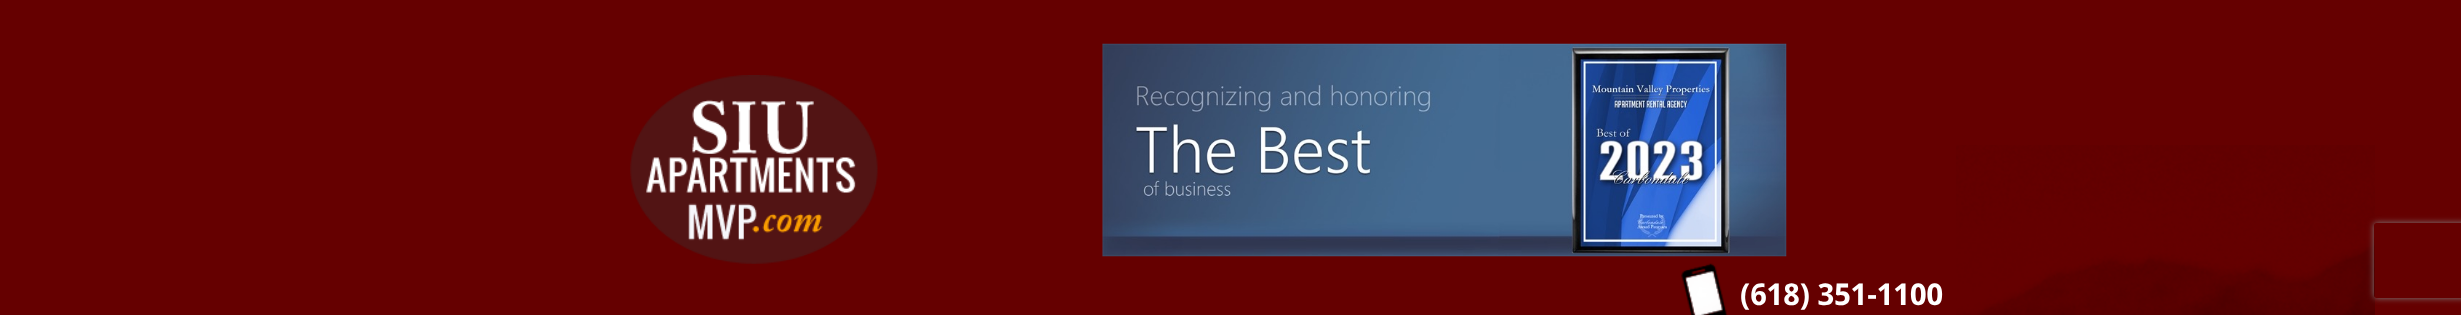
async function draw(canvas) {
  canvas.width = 2461
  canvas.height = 315
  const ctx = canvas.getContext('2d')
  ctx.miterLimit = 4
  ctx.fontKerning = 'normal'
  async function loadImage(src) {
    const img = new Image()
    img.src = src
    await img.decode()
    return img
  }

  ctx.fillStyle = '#650000'
  ctx.fillRect(0, 0, 2461, 315)
  ctx.drawImage(await loadImage('image0.png'), 1956, 145, 419, 170)
  ctx.drawImage(await loadImage('image1.png'), 630, 75, 248, 189)
  ctx.drawImage(await loadImage('image2.png'), 1102, 43, 685, 214)
  ctx.drawImage(await loadImage('image3.png'), 1681, 263, 47, 52)
  ctx.font = 'bold 30px Droid Sans'
  ctx.fillStyle = '#fff'
  ctx.fillText('(618) 351-1100', 1740, 305)
  ctx.save()
  ctx.beginPath()
  ctx.moveTo(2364, 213)
  ctx.lineTo(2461, 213)
  ctx.lineTo(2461, 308)
  ctx.lineTo(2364, 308)
  ctx.closePath()
  ctx.moveTo(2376.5, 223)
  ctx.lineTo(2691.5, 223)
  ctx.bezierCurveTo(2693, 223, 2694, 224, 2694, 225.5)
  ctx.lineTo(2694, 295.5)
  ctx.bezierCurveTo(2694, 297, 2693, 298, 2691.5, 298)
  ctx.lineTo(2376.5, 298)
  ctx.bezierCurveTo(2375, 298, 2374, 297, 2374, 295.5)
  ctx.lineTo(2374, 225.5)
  ctx.bezierCurveTo(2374, 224, 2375, 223, 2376.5, 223)
  ctx.closePath()
  ctx.clip('evenodd')
  ctx.fillStyle = '#808080'
  ctx.filter = 'blur(3px)'
  ctx.beginPath()
  ctx.roundRect(2374, 223, 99, 75, 2.5)
  ctx.fill()
  ctx.filter = 'none'
  ctx.restore()
}

draw(document.querySelector('canvas'))
